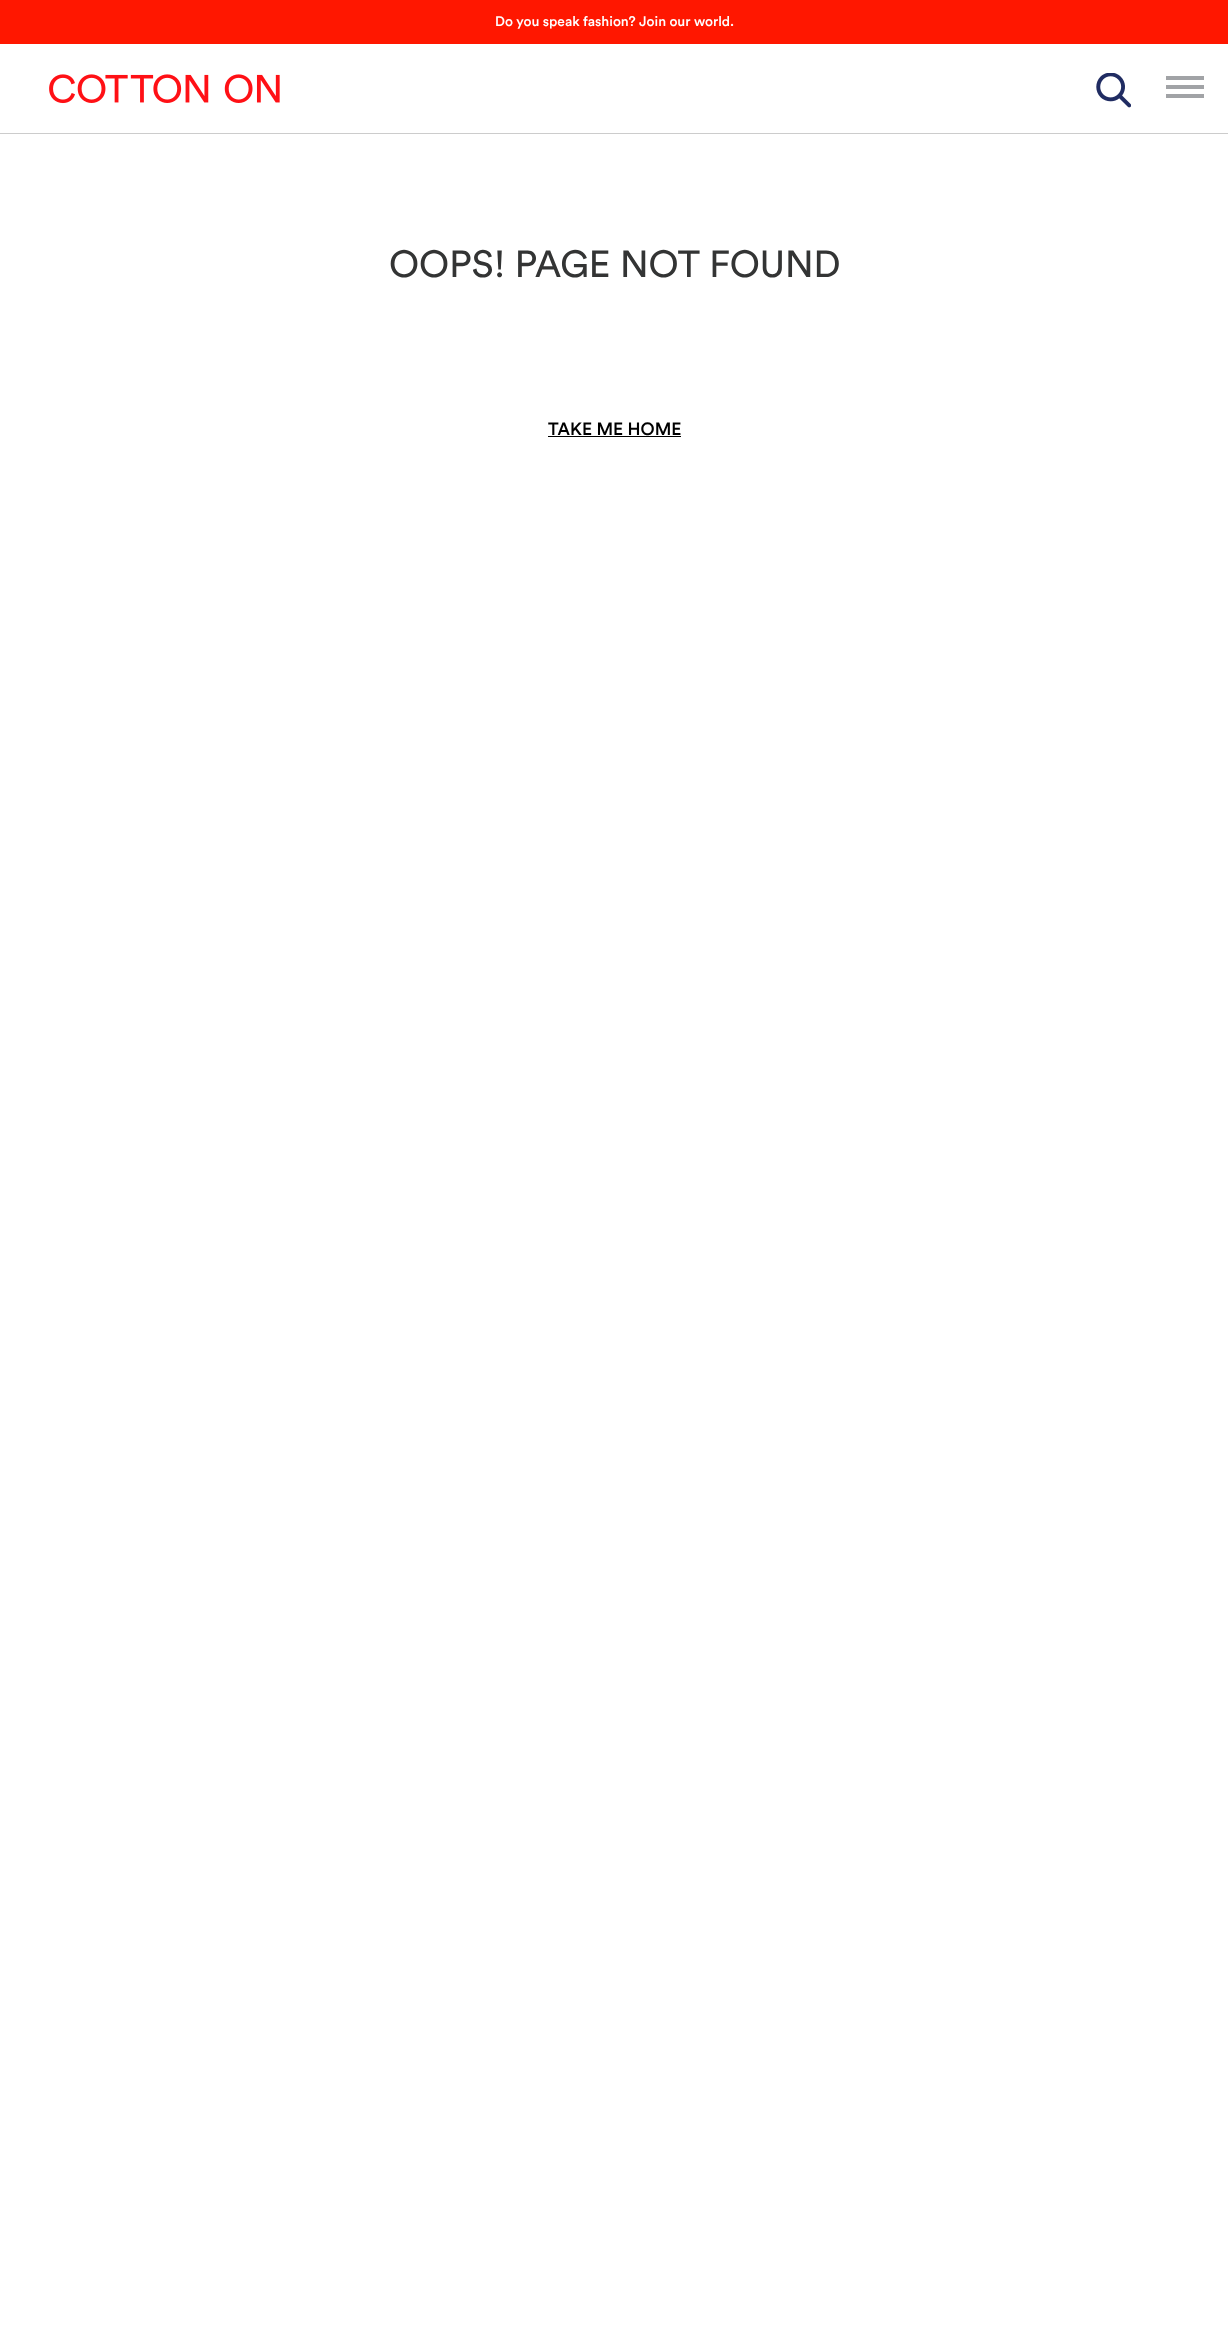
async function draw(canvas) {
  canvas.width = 1228
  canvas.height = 2345
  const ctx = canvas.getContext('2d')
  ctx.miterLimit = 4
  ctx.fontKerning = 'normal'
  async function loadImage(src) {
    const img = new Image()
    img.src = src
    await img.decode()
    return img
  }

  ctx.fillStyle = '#fff'
  ctx.fillRect(0, 0, 1228, 2345)
  ctx.fillStyle = '#ff1700'
  ctx.fillRect(0, 0, 1228, 44)
  ctx.font = '500 13.75px Circular'
  ctx.fillStyle = '#fff'
  ctx.fillText('Do you speak fashion? Join our world.', 495, 26)
  ctx.drawImage(await loadImage('image0.png'), 49, 74, 231, 30)
  ctx.drawImage(await loadImage('image1.png'), 1096, 73, 35, 35)
  ctx.fillStyle = '#a1a3a6'
  ctx.fillRect(1166, 76, 38, 4)
  ctx.fillRect(1166, 85, 38, 4)
  ctx.fillRect(1166, 94, 38, 4)
  ctx.fillStyle = '#ccc'
  ctx.fillRect(0, 133, 1228, 1)
  ctx.font = '37.5px Circular'
  ctx.fillStyle = '#333434'
  ctx.fillText('OOPS! PAGE NOT FOUND', 389, 277)
  ctx.font = '500 17.5px Circular'
  ctx.fillStyle = '#000'
  ctx.fillText('TAKE ME HOME', 548, 435)
  ctx.fillRect(548, 436, 133, 1)
}

draw(document.querySelector('canvas'))
